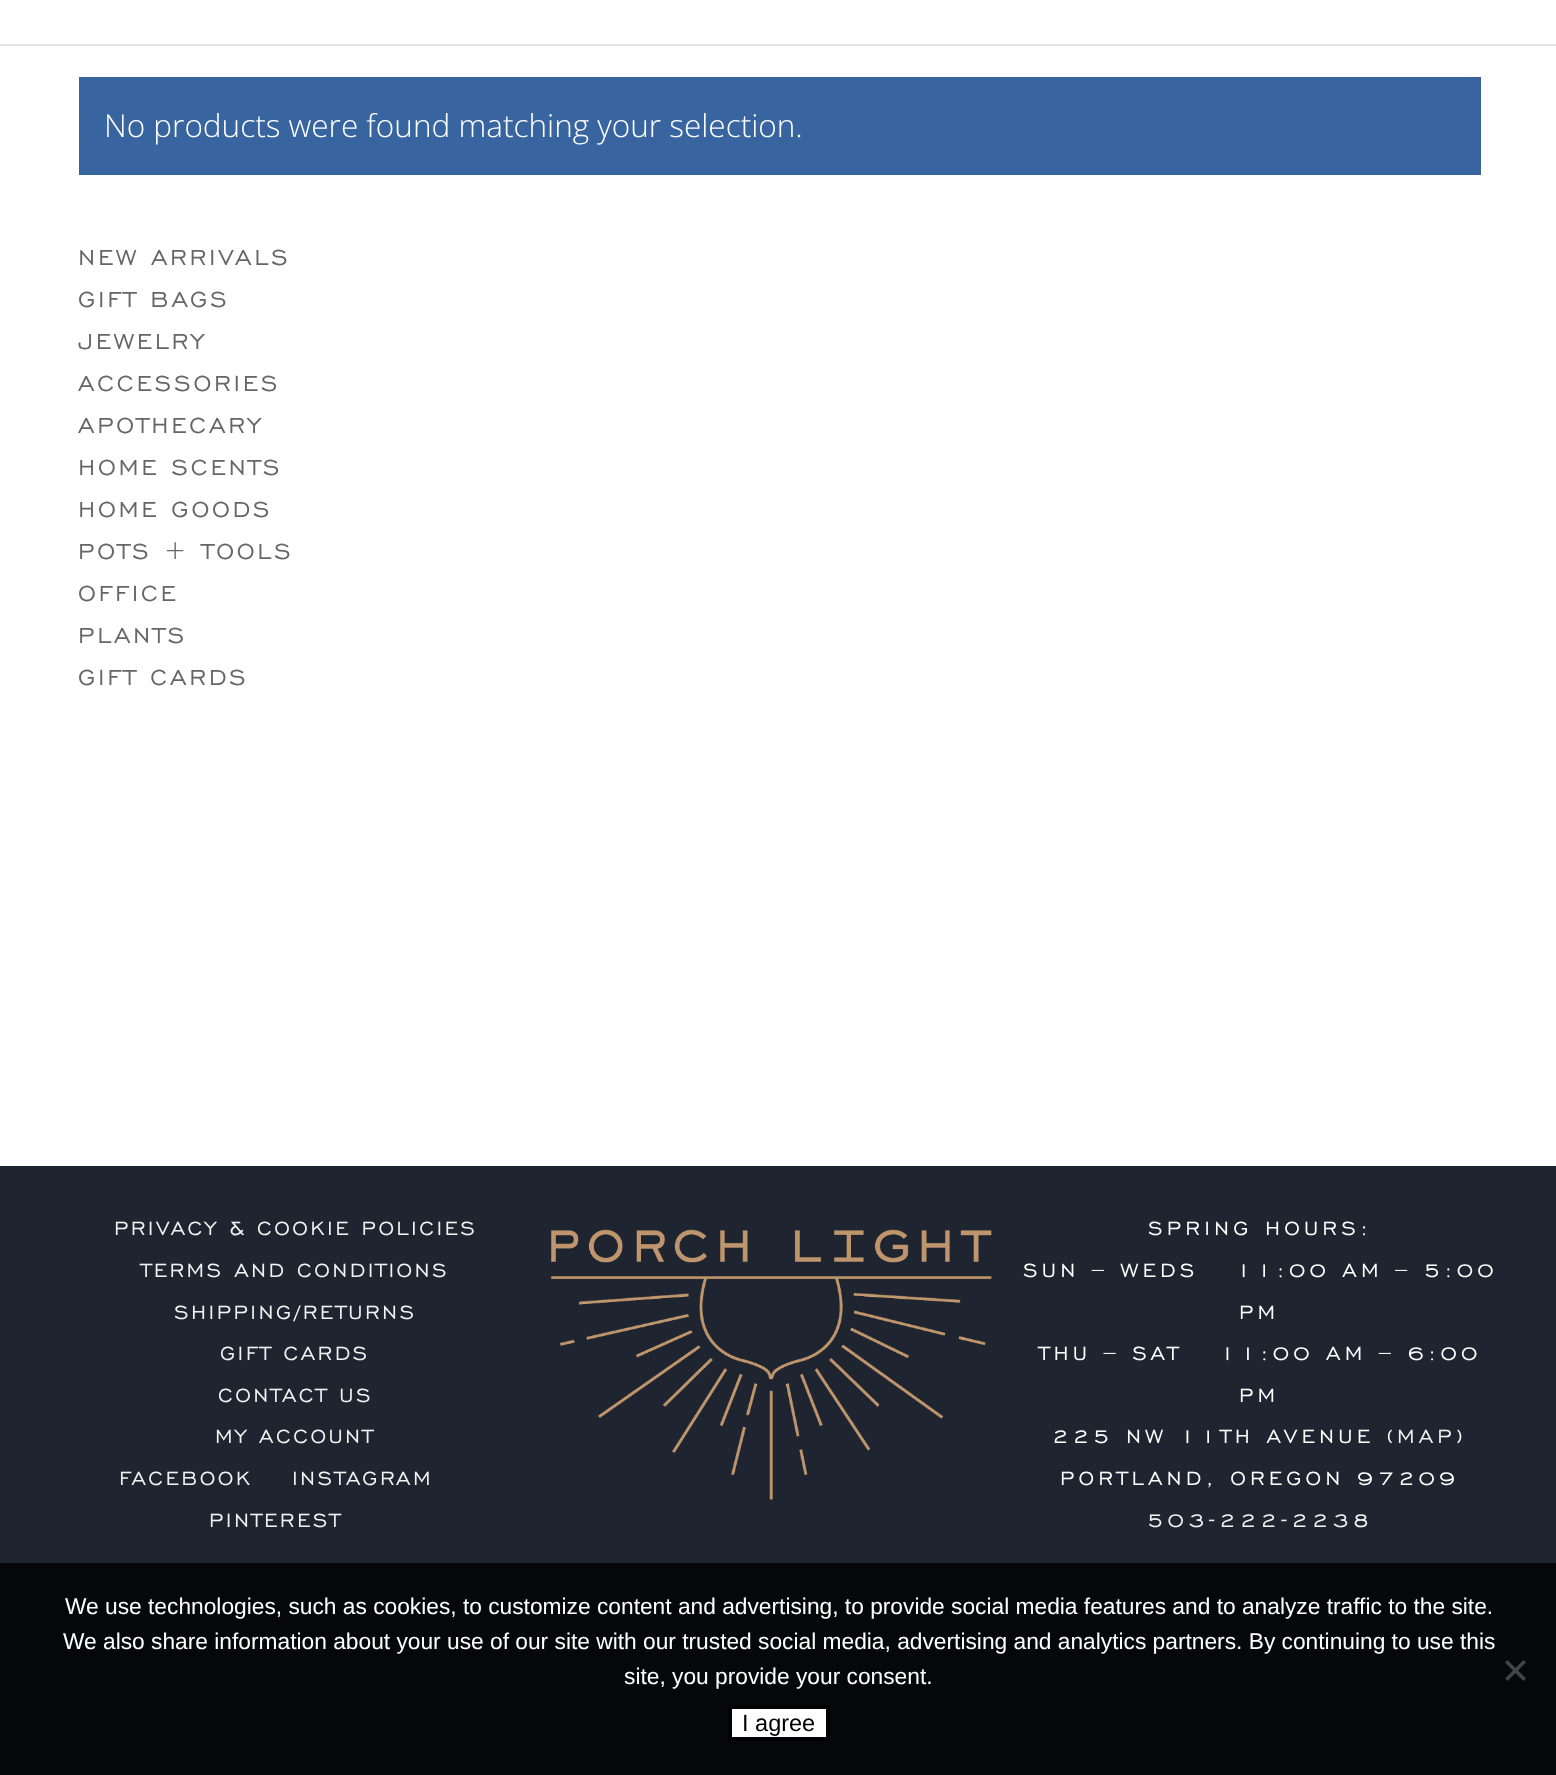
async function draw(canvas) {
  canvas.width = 1556
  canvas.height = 1775
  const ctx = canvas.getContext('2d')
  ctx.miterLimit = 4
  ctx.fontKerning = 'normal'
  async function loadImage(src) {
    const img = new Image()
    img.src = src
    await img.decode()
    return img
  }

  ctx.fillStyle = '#fff'
  ctx.fillRect(0, 0, 1556, 1775)
  ctx.fillStyle = '#e6e6e6'
  ctx.beginPath()
  ctx.moveTo(0, 44)
  ctx.lineTo(0, 46)
  ctx.lineTo(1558, 46)
  ctx.lineTo(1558, -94)
  ctx.lineTo(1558, 44)
  ctx.closePath()
  ctx.fill()
  ctx.fillStyle = '#3865a0'
  ctx.fillRect(79, 77, 1402, 98)
  ctx.font = '300 31.5px Open Sans'
  ctx.fillStyle = '#fff'
  ctx.fillText('No products were found matching your selection.', 104, 137)
  ctx.letterSpacing = '2.75px'
  ctx.font = '28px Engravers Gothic'
  ctx.fillStyle = '#666'
  ctx.fillText('NEW ARRIVALS', 78, 265)
  ctx.fillText('GIFT BAGS', 78, 307)
  ctx.fillText('JEWELRY', 78, 349)
  ctx.fillText('ACCESSORIES', 78, 391)
  ctx.fillText('APOTHECARY', 78, 433)
  ctx.fillText('HOME SCENTS', 78, 475)
  ctx.fillText('HOME GOODS', 78, 517)
  ctx.fillText('POTS + TOOLS', 78, 559)
  ctx.fillText('OFFICE', 78, 601)
  ctx.fillText('PLANTS', 78, 643)
  ctx.fillText('GIFT CARDS', 78, 685)
  ctx.fillStyle = '#1f2530'
  ctx.fillRect(0, 1166, 1556, 397)
  ctx.letterSpacing = '2.45px'
  ctx.font = '24.5px Engravers Gothic'
  ctx.fillStyle = '#f2f2f2'
  ctx.fillText('PRIVACY & COOKIE POLICIES', 114, 1235)
  ctx.fillText('TERMS AND CONDITIONS', 141, 1277)
  ctx.fillText('SHIPPING/RETURNS', 174, 1319)
  ctx.fillText('GIFT CARDS', 220, 1360)
  ctx.fillText('CONTACT US', 218, 1402)
  ctx.fillText('MY ACCOUNT', 215, 1443)
  ctx.fillText('FACEBOOK', 119, 1485)
  ctx.fillText('INSTAGRAM', 292, 1485)
  ctx.fillText('PINTEREST', 209, 1527)
  ctx.drawImage(await loadImage('image0.png'), 551, 1229, 441, 271)
  ctx.letterSpacing = '4.2px'
  ctx.fillStyle = '#fff'
  ctx.fillText('SPRING HOURS:', 1148, 1235)
  ctx.fillText('SUN – WEDS   11:00 AM – 5:00', 1023, 1277)
  ctx.fillText('PM', 1239, 1319)
  ctx.fillText('THU – SAT   11:00 AM – 6:00', 1039, 1360)
  ctx.fillText('PM', 1239, 1402)
  ctx.fillText('225 NW 11TH AVENUE (', 1052, 1443)
  ctx.fillStyle = '#f2f2f2'
  ctx.fillText('MAP', 1397, 1443)
  ctx.fillStyle = '#fff'
  ctx.fillText(')', 1456, 1443)
  ctx.fillText('PORTLAND, OREGON 97209', 1060, 1485)
  ctx.fillStyle = '#f2f2f2'
  ctx.fillText('503-222-2238', 1147, 1527)
  ctx.fillStyle = '#06070a'
  ctx.fillRect(0, 1563, 1556, 212)
  ctx.letterSpacing = '0px'
  ctx.font = '22.75px Liberation Sans'
  ctx.fillStyle = '#fff'
  ctx.fillText('We use technologies, such as cookies, to customize content and advertising, to provide social media features and to analyze traffic to the site.', 65, 1614)
  ctx.fillText('We also share information about your use of our site with our trusted social media, advertising and analytics partners. By continuing to use this', 63, 1649)
  ctx.fillText('site, you provide your consent.', 624, 1684)
  ctx.fillStyle = '#434445'
  ctx.beginPath()
  ctx.moveTo(1523.5, 1660)
  ctx.lineTo(1526, 1662.5)
  ctx.lineTo(1507.5, 1681)
  ctx.lineTo(1505, 1678.5)
  ctx.closePath()
  ctx.fill()
  ctx.beginPath()
  ctx.moveTo(1505, 1662.5)
  ctx.lineTo(1507.5, 1660)
  ctx.lineTo(1526, 1678.5)
  ctx.lineTo(1523.5, 1681)
  ctx.closePath()
  ctx.fill()
  ctx.fillStyle = '#fff'
  ctx.beginPath()
  ctx.rect(730, 1707, 98, 32)
  ctx.fill()
  ctx.strokeStyle = '#000'
  ctx.lineWidth = 4
  ctx.stroke()
  ctx.font = '23.5px Liberation Sans'
  ctx.fillStyle = '#000'
  ctx.fillText('I agree', 742, 1731)
}

draw(document.querySelector('canvas'))
